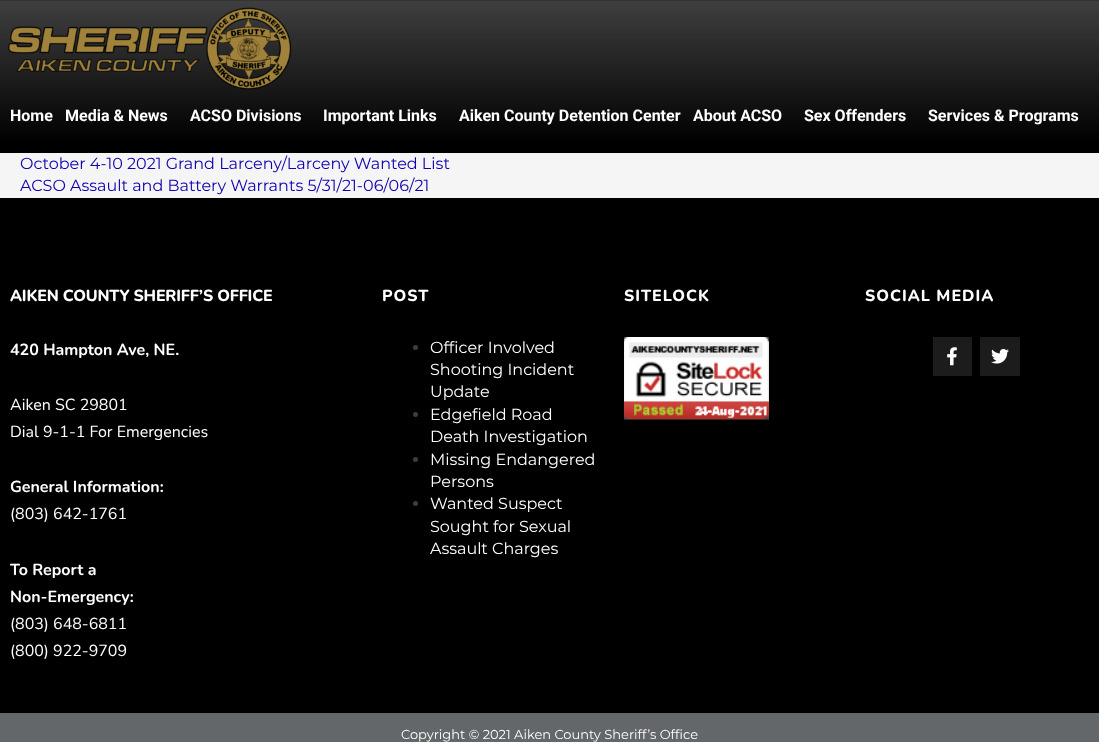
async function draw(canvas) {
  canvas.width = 1099
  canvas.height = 742
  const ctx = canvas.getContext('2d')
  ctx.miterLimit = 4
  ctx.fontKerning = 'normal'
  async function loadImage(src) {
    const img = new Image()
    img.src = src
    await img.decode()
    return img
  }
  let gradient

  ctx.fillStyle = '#f5f5f5'
  ctx.fillRect(0, 0, 1099, 742)
  gradient = ctx.createLinearGradient(550, 0, 550, 143)
  gradient.addColorStop(0, '#3f3f3f')
  gradient.addColorStop(1, '#000')
  ctx.fillStyle = gradient
  ctx.fillRect(0, 1, 1099, 142)
  ctx.fillStyle = '#333'
  ctx.fillRect(0, 0, 1099, 1)
  ctx.drawImage(await loadImage('image0.png'), 8, 7, 284, 83)
  ctx.font = 'bold 16px Roboto'
  ctx.fillStyle = '#fff'
  ctx.fillText('Home', 10, 121)
  ctx.fillText('Media & News', 65, 121)
  ctx.fillText('ACSO Divisions', 190, 121)
  ctx.fillText('Important Links', 323, 121)
  ctx.fillText('Aiken County Detention Center', 459, 121)
  ctx.fillText('About ACSO', 693, 121)
  ctx.fillText('Sex Offenders', 804, 121)
  ctx.fillText('Services & Programs', 928, 121)
  ctx.fillStyle = '#000'
  ctx.fillRect(0, 143, 1099, 10)
  ctx.font = '16px Montserrat'
  ctx.fillStyle = '#0f00ad'
  ctx.fillText('October 4-10 2021 Grand Larceny/Larceny Wanted List', 20, 169)
  ctx.fillText('ACSO Assault and Battery Warrants 5/31/21-06/06/21', 20, 191)
  ctx.fillStyle = '#000'
  ctx.fillRect(0, 198, 1099, 515)
  ctx.letterSpacing = '-0.2px'
  ctx.font = '800 16px Nunito'
  ctx.fillStyle = '#fff'
  ctx.fillText('AIKEN COUNTY SHERIFF’S OFFICE', 10, 301)
  ctx.letterSpacing = '0px'
  ctx.font = 'bold 16px Nunito'
  ctx.fillText('420 Hampton Ave, NE.', 10, 355)
  ctx.font = '16px Nunito'
  ctx.fillText('Aiken SC 29801', 10, 410)
  ctx.fillText('Dial 9-1-1 For Emergencies', 10, 437)
  ctx.font = 'bold 16px Nunito'
  ctx.fillText('General Information:', 10, 492)
  ctx.font = '16px Nunito'
  ctx.fillText('(803) 642-1761', 10, 519)
  ctx.font = 'bold 16px Nunito'
  ctx.fillText('To Report a', 10, 575)
  ctx.fillText('Non-Emergency:', 10, 602)
  ctx.font = '16px Nunito'
  ctx.fillText('(803) 648-6811', 10, 629)
  ctx.fillText('(800) 922-9709', 10, 656)
  ctx.letterSpacing = '1px'
  ctx.font = '800 16px Nunito'
  ctx.fillText('POST', 382, 301)
  ctx.fillStyle = '#3e3e3e'
  ctx.beginPath()
  ctx.arc(415.5, 347.5, 2.5, 0, 2 * Math.PI)
  ctx.fill()
  ctx.letterSpacing = '0px'
  ctx.font = '16px Montserrat'
  ctx.fillStyle = '#fff'
  ctx.fillText('Officer Involved', 430, 353)
  ctx.fillText('Shooting Incident', 430, 375)
  ctx.fillText('Update', 430, 397)
  ctx.fillStyle = '#3e3e3e'
  ctx.beginPath()
  ctx.arc(415.5, 414.5, 2.5, 0, 2 * Math.PI)
  ctx.fill()
  ctx.fillStyle = '#fff'
  ctx.fillText('Edgefield Road', 430, 420)
  ctx.fillText('Death Investigation', 430, 442)
  ctx.fillStyle = '#3e3e3e'
  ctx.beginPath()
  ctx.arc(415.5, 459.5, 2.5, 0, 2 * Math.PI)
  ctx.fill()
  ctx.fillStyle = '#fff'
  ctx.fillText('Missing Endangered', 430, 465)
  ctx.fillText('Persons', 430, 487)
  ctx.fillStyle = '#3e3e3e'
  ctx.beginPath()
  ctx.arc(415.5, 503.5, 2.5, 0, 2 * Math.PI)
  ctx.fill()
  ctx.fillStyle = '#fff'
  ctx.fillText('Wanted Suspect', 430, 509)
  ctx.fillText('Sought for Sexual', 430, 532)
  ctx.fillText('Assault Charges', 430, 554)
  ctx.letterSpacing = '1px'
  ctx.font = '800 16px Nunito'
  ctx.fillText('SITELOCK', 624, 301)
  ctx.drawImage(await loadImage('image1.png'), 624, 337, 145, 83)
  ctx.fillText('SOCIAL MEDIA', 865, 301)
  ctx.fillStyle = '#1c1c1c'
  ctx.fillRect(933, 337, 39, 39)
  ctx.drawImage(await loadImage('image2.png'), 947, 347, 10, 19)
  ctx.fillRect(980, 337, 40, 39)
  ctx.drawImage(await loadImage('image3.png'), 991, 348, 18, 16)
  ctx.fillStyle = '#63676a'
  ctx.fillRect(0, 713, 1099, 29)
  ctx.letterSpacing = '0px'
  ctx.font = '13px Montserrat'
  ctx.fillStyle = '#fff'
  ctx.fillText('Copyright © 2021 Aiken County Sheriff’s Office', 401, 739)
}

draw(document.querySelector('canvas'))
